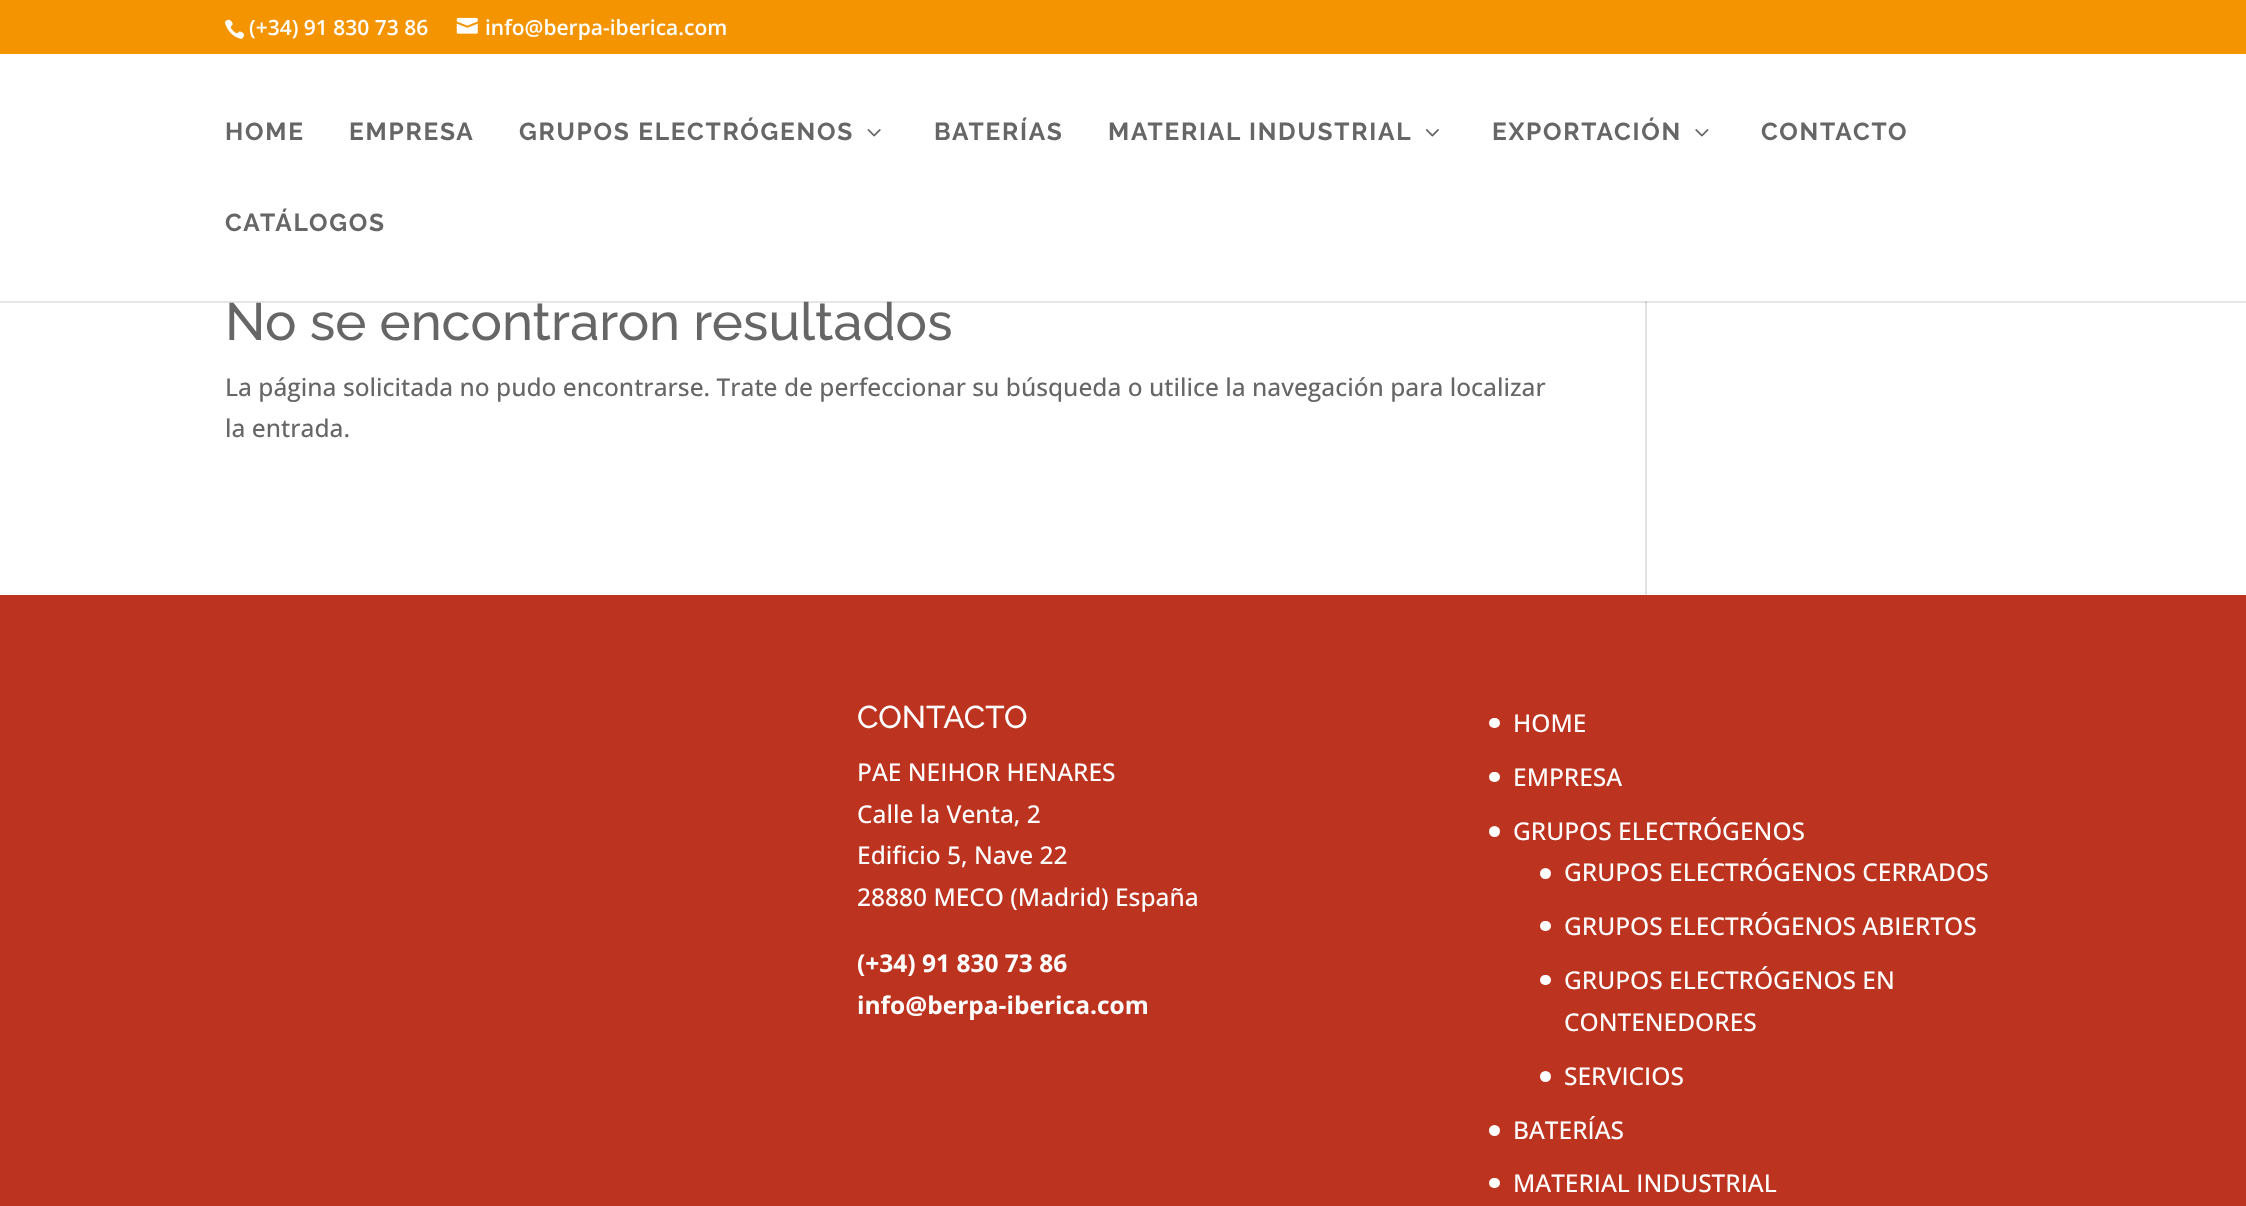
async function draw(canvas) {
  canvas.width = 2246
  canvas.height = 1206
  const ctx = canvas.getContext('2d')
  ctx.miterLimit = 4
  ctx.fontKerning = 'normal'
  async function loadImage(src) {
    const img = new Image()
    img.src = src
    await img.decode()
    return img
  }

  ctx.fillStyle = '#fff'
  ctx.fillRect(0, 0, 2246, 1206)
  ctx.fillStyle = '#f39400'
  ctx.fillRect(0, 0, 2246, 54)
  ctx.drawImage(await loadImage('image0.png'), 224, 19, 21, 20)
  ctx.font = '600 21px Open Sans'
  ctx.fillStyle = '#fff'
  ctx.fillText('(+34) 91 830 73 86', 249, 35)
  ctx.drawImage(await loadImage('image1.png'), 456, 17, 22, 17)
  ctx.fillText('info@berpa-iberica.com', 485, 35)
  ctx.fillStyle = '#e2e2e2'
  ctx.fillRect(1645, 301, 2, 294)
  ctx.fillStyle = '#0000001a'
  ctx.fillRect(0, 301, 2246, 2)
  ctx.letterSpacing = '1.75px'
  ctx.font = 'bold 24.5px Raleway'
  ctx.fillStyle = '#666'
  ctx.fillText('HOME', 225, 140)
  ctx.fillText('EMPRESA', 349, 140)
  ctx.fillText('GRUPOS ELECTRÓGENOS', 519, 140)
  ctx.drawImage(await loadImage('image2.png'), 867, 129, 14, 8)
  ctx.fillText('BATERÍAS', 934, 140)
  ctx.fillText('MATERIAL INDUSTRIAL', 1108, 140)
  ctx.drawImage(await loadImage('image3.png'), 1425, 129, 14, 8)
  ctx.fillText('EXPORTACIÓN', 1492, 140)
  ctx.drawImage(await loadImage('image4.png'), 1695, 129, 14, 8)
  ctx.fillText('CONTACTO', 1761, 140)
  ctx.fillText('CATÁLOGOS', 225, 231)
  ctx.letterSpacing = '0px'
  ctx.font = '500 52.5px Raleway'
  ctx.fillText('No se encontraron resultados', 225, 340)
  ctx.font = '500 24.5px Open Sans'
  ctx.fillText('La página solicitada no pudo encontrarse. Trate de perfeccionar su búsqueda o utilice la navegación para localizar', 225, 396)
  ctx.fillText('la entrada.', 225, 437)
  ctx.fillStyle = '#bc331f'
  ctx.fillRect(0, 595, 2246, 611)
  ctx.font = '500 31.5px Raleway'
  ctx.fillStyle = '#fff'
  ctx.fillText('CONTACTO', 857, 728)
  ctx.font = '500 24.5px Open Sans'
  ctx.fillText('PAE NEIHOR HENARES', 857, 781)
  ctx.fillText('Calle la Venta, 2', 857, 823)
  ctx.fillText('Edificio 5, Nave 22', 857, 864)
  ctx.fillText('28880 MECO (Madrid) España', 857, 906)
  ctx.font = 'bold 24.5px Open Sans'
  ctx.fillText('(+34) 91 830 73 86', 857, 972)
  ctx.fillText('info@berpa-iberica.com', 857, 1014)
  ctx.beginPath()
  ctx.roundRect(1489, 718, 11, 10, 5)
  ctx.fill()
  ctx.font = '500 24.5px Open Sans'
  ctx.fillText('HOME', 1513, 732)
  ctx.beginPath()
  ctx.roundRect(1489, 772, 11, 10, 5)
  ctx.fill()
  ctx.fillText('EMPRESA', 1513, 786)
  ctx.beginPath()
  ctx.arc(1494.5, 831.5, 5.5, 0, 2 * Math.PI)
  ctx.fill()
  ctx.fillText('GRUPOS ELECTRÓGENOS', 1513, 840)
  ctx.beginPath()
  ctx.arc(1545.5, 873.5, 5.5, 0, 2 * Math.PI)
  ctx.fill()
  ctx.fillText('GRUPOS ELECTRÓGENOS CERRADOS', 1564, 881)
  ctx.beginPath()
  ctx.roundRect(1540, 921, 11, 10, 5)
  ctx.fill()
  ctx.fillText('GRUPOS ELECTRÓGENOS ABIERTOS', 1564, 935)
  ctx.beginPath()
  ctx.roundRect(1540, 975, 11, 10, 5)
  ctx.fill()
  ctx.fillText('GRUPOS ELECTRÓGENOS EN', 1564, 989)
  ctx.fillText('CONTENEDORES', 1564, 1031)
  ctx.beginPath()
  ctx.arc(1545.5, 1076.5, 5.5, 0, 2 * Math.PI)
  ctx.fill()
  ctx.fillText('SERVICIOS', 1564, 1085)
  ctx.beginPath()
  ctx.arc(1494.5, 1130.5, 5.5, 0, 2 * Math.PI)
  ctx.fill()
  ctx.fillText('BATERÍAS', 1513, 1139)
  ctx.beginPath()
  ctx.roundRect(1489, 1178, 11, 10, 5)
  ctx.fill()
  ctx.fillText('MATERIAL INDUSTRIAL', 1513, 1192)
}

draw(document.querySelector('canvas'))
